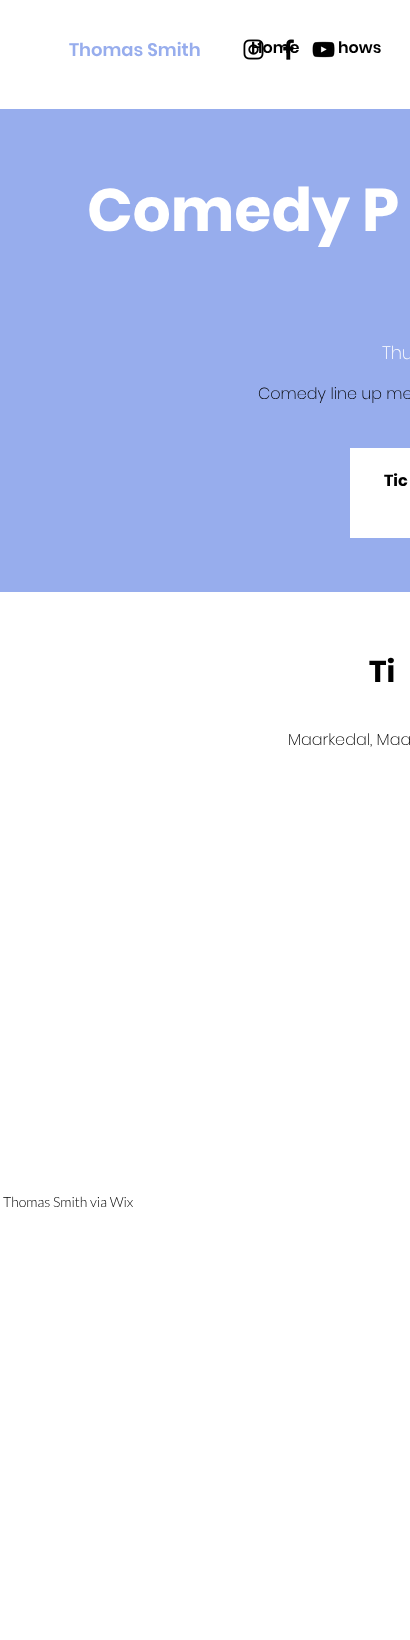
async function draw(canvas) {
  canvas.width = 410
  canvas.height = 1640
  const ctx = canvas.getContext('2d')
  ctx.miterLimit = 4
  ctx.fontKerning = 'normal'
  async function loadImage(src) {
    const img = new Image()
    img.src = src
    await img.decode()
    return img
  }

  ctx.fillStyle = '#fff'
  ctx.fillRect(0, 0, 410, 1640)
  ctx.font = '600 18px Poppins'
  ctx.fillStyle = '#97aded'
  ctx.fillText('Thomas Smith', 69, 56)
  ctx.font = '600 16px Poppins'
  ctx.fillStyle = '#000'
  ctx.fillText('Home', 251, 53)
  ctx.drawImage(await loadImage('image0.png'), 243, 39, 21, 21)
  ctx.drawImage(await loadImage('image1.png'), 283, 39, 11, 21)
  ctx.drawImage(await loadImage('image2.png'), 312, 41, 23, 17)
  ctx.fillText('hows', 338, 53)
  ctx.fillStyle = '#97aded'
  ctx.fillRect(0, 109, 410, 483)
  ctx.font = 'bold 60px Poppins'
  ctx.fillStyle = '#fff'
  ctx.fillText('Comedy P', 87, 231)
  ctx.font = '200 18px Poppins'
  ctx.fillText('Thu', 382, 359)
  ctx.font = '200 16px Poppins'
  ctx.fillStyle = '#000'
  ctx.fillText('Comedy line up me', 258, 399)
  ctx.fillStyle = '#fff'
  ctx.fillRect(350, 448, 60, 90)
  ctx.font = 'bold 16px Poppins'
  ctx.fillStyle = '#000'
  ctx.fillText('Tic', 384, 486)
  ctx.font = 'bold 30px Poppins'
  ctx.fillText('Ti', 369, 682)
  ctx.font = '200 16px Poppins'
  ctx.fillText('Maarkedal, Maa', 288, 745)
  ctx.font = '300 14px Lato'
  ctx.fillText('Thomas Smith via Wix', 3, 1207)
}

draw(document.querySelector('canvas'))
